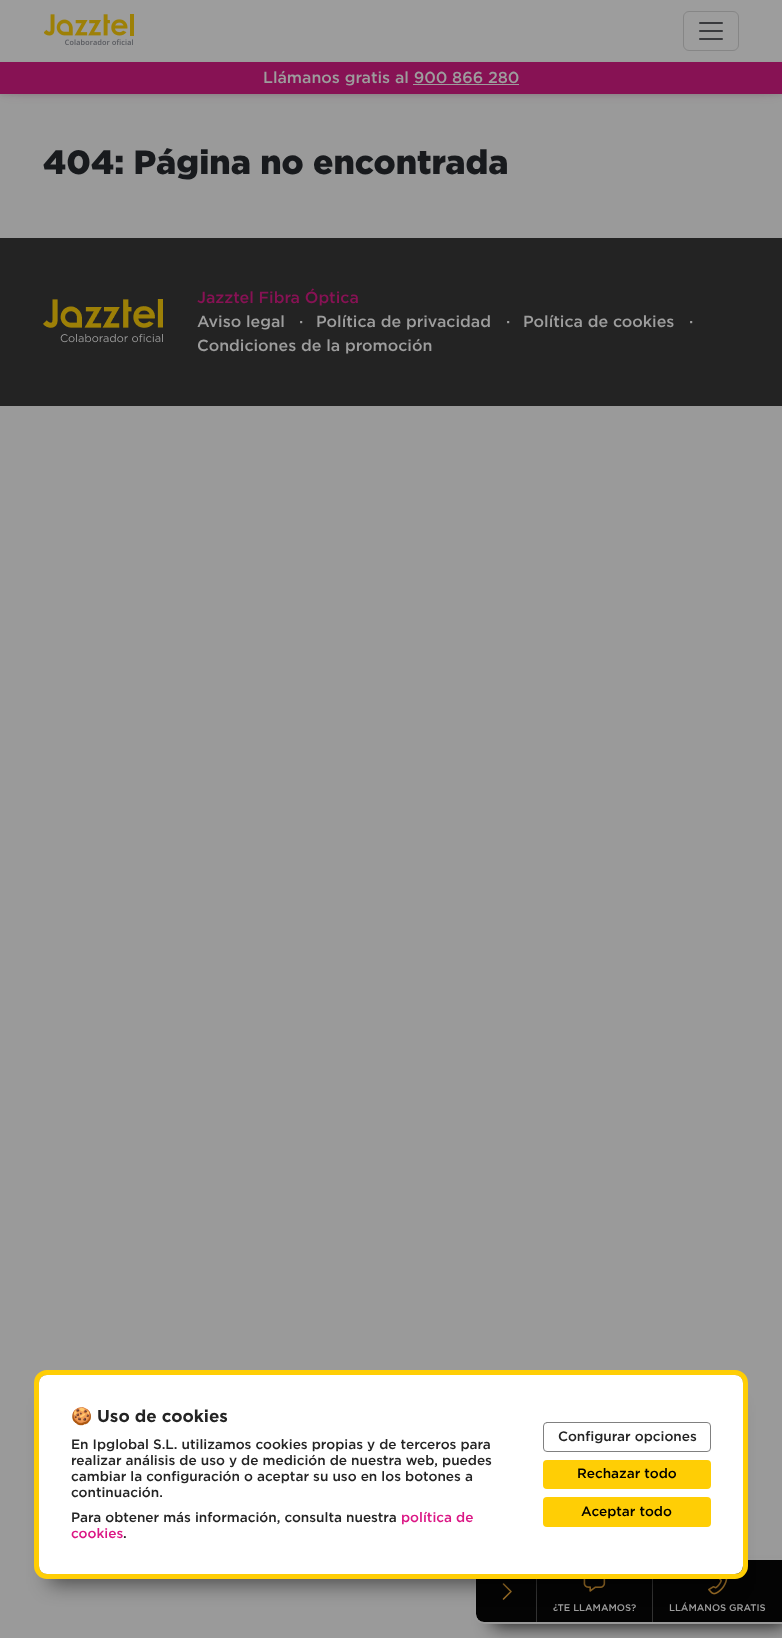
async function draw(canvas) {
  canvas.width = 782
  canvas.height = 1638
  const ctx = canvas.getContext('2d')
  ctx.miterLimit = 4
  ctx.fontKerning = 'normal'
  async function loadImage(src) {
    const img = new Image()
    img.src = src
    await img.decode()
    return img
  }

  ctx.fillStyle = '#9a9a9a'
  ctx.fillRect(0, 0, 782, 1638)
  ctx.fillStyle = '#87205480'
  ctx.filter = 'blur(7.5px)'
  ctx.beginPath()
  ctx.rect(7, 7, 768, 80)
  ctx.fill()
  ctx.filter = 'none'
  ctx.fillStyle = '#9d9d9d'
  ctx.fillRect(0, 0, 782, 62)
  ctx.drawImage(await loadImage('image0.png'), 44, 14, 90, 31)
  ctx.beginPath()
  ctx.roundRect(683.5, 11.5, 55, 39, 5.5)
  ctx.strokeStyle = '#868686'
  ctx.stroke()
  ctx.drawImage(await loadImage('image1.png'), 699, 22, 24, 18)
  ctx.fillStyle = '#04040412'
  ctx.filter = 'blur(2px)'
  ctx.beginPath()
  ctx.rect(0, 64, 782, 32)
  ctx.fill()
  ctx.filter = 'none'
  ctx.fillStyle = '#871254'
  ctx.fillRect(0, 62, 782, 32)
  ctx.font = '500 16px Gotham'
  ctx.fillStyle = '#9d9d9d'
  ctx.fillText('Llámanos gratis al 900 866 280', 263, 83)
  ctx.fillRect(413, 84, 106, 1)
  ctx.font = '900 33.75px Gotham'
  ctx.fillStyle = '#181a1d'
  ctx.fillText('404: Página no encontrada', 43, 174)
  ctx.fillStyle = '#232323'
  ctx.fillRect(0, 238, 782, 168)
  ctx.drawImage(await loadImage('image2.png'), 43, 299, 120, 44)
  ctx.font = '500 16px Gotham'
  ctx.fillStyle = '#871254'
  ctx.fillText('Jazztel Fibra Óptica', 197, 303)
  ctx.fillStyle = '#9d9d9d'
  ctx.fillText('Aviso legal', 197, 327)
  ctx.fillText('·', 299, 327)
  ctx.fillText('Política de privacidad', 316, 327)
  ctx.fillText('·', 506, 327)
  ctx.fillText('Política de cookies', 523, 327)
  ctx.fillText('·', 689, 327)
  ctx.fillText('Condiciones de la promoción', 197, 351)
  ctx.fillStyle = '#040404cc'
  ctx.filter = 'blur(9px)'
  ctx.beginPath()
  ctx.roundRect(492, 1576, 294, 50, 2)
  ctx.fill()
  ctx.filter = 'none'
  ctx.fillStyle = '#040404'
  ctx.beginPath()
  ctx.roundRect(476, 1560, 306, 62, [8, 0, 0, 8])
  ctx.fill()
  ctx.beginPath()
  ctx.moveTo(503.5, 1599)
  ctx.lineTo(511, 1591.5)
  ctx.lineTo(503.5, 1584)
  ctx.strokeStyle = '#9b6e27'
  ctx.lineWidth = 1.6
  ctx.lineCap = 'round'
  ctx.lineJoin = 'round'
  ctx.stroke()
  ctx.fillStyle = '#323232'
  ctx.fillRect(536, 1579, 1, 43)
  ctx.drawImage(await loadImage('image3.png'), 583, 1579, 23, 13)
  ctx.fillRect(652, 1579, 1, 43)
  ctx.drawImage(await loadImage('image4.png'), 708, 1579, 20, 16)
  ctx.beginPath()
  ctx.moveTo(484, 1559)
  ctx.lineTo(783, 1559)
  ctx.lineTo(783, 1623)
  ctx.lineTo(484, 1623)
  ctx.bezierCurveTo(479, 1623, 475, 1619, 475, 1614)
  ctx.lineTo(475, 1568)
  ctx.bezierCurveTo(475, 1563, 479, 1559, 484, 1559)
  ctx.closePath()
  ctx.strokeStyle = '#9a9a9a'
  ctx.lineWidth = 2
  ctx.lineJoin = 'miter'
  ctx.stroke()
  ctx.fillStyle = '#00000080'
  ctx.filter = 'blur(10px)'
  ctx.beginPath()
  ctx.rect(49, 1405, 684, 179)
  ctx.fill()
  ctx.filter = 'none'
  ctx.fillStyle = '#fff'
  ctx.beginPath()
  ctx.roundRect(39, 1375, 704, 199, 8)
  ctx.fill()
  ctx.beginPath()
  ctx.roundRect(543.5, 1422.5, 167, 29, 3.5)
  ctx.strokeStyle = '#808080'
  ctx.lineWidth = 1
  ctx.stroke()
  ctx.fillStyle = '#ffce05'
  ctx.beginPath()
  ctx.roundRect(543, 1460, 168, 29, 4)
  ctx.fill()
  ctx.beginPath()
  ctx.roundRect(543, 1497, 168, 30, 4)
  ctx.fill()
  ctx.beginPath()
  ctx.roundRect(36.5, 1372.5, 709, 204, 10.5)
  ctx.strokeStyle = '#ffce05'
  ctx.lineWidth = 5
  ctx.stroke()
  ctx.font = 'bold 17px Noto Color Emoji'
  ctx.fillStyle = '#242424'
  ctx.fillText('🍪', 71, 1422)
  ctx.font = 'bold 17px Gotham'
  ctx.fillText('Uso de cookies', 97, 1422)
  ctx.font = '500 13.6px Gotham'
  ctx.fillText('En Ipglobal S.L. utilizamos cookies propias y de terceros para', 71, 1449)
  ctx.fillText('realizar análisis de uso y de medición de nuestra web, puedes', 71, 1465)
  ctx.fillText('cambiar la configuración o aceptar su uso en los botones a', 71, 1481)
  ctx.fillText('continuación.', 71, 1497)
  ctx.fillText('Para obtener más información, consulta nuestra', 71, 1522)
  ctx.fillStyle = '#db1785'
  ctx.fillText('política de', 401, 1522)
  ctx.fillText('cookies', 71, 1538)
  ctx.fillStyle = '#242424'
  ctx.fillText('.', 123, 1538)
  ctx.fillText('Configurar opciones', 558, 1441)
  ctx.fillStyle = '#000'
  ctx.fillText('Rechazar todo', 577, 1478)
  ctx.fillText('Aceptar todo', 581, 1516)
  ctx.font = '500 9.6px Gotham'
  ctx.fillStyle = '#9d9d9d'
  ctx.fillText('¿TE LLAMAMOS?', 553, 1611)
  ctx.fillText('LLÁMANOS GRATIS', 669, 1611)
}

draw(document.querySelector('canvas'))
